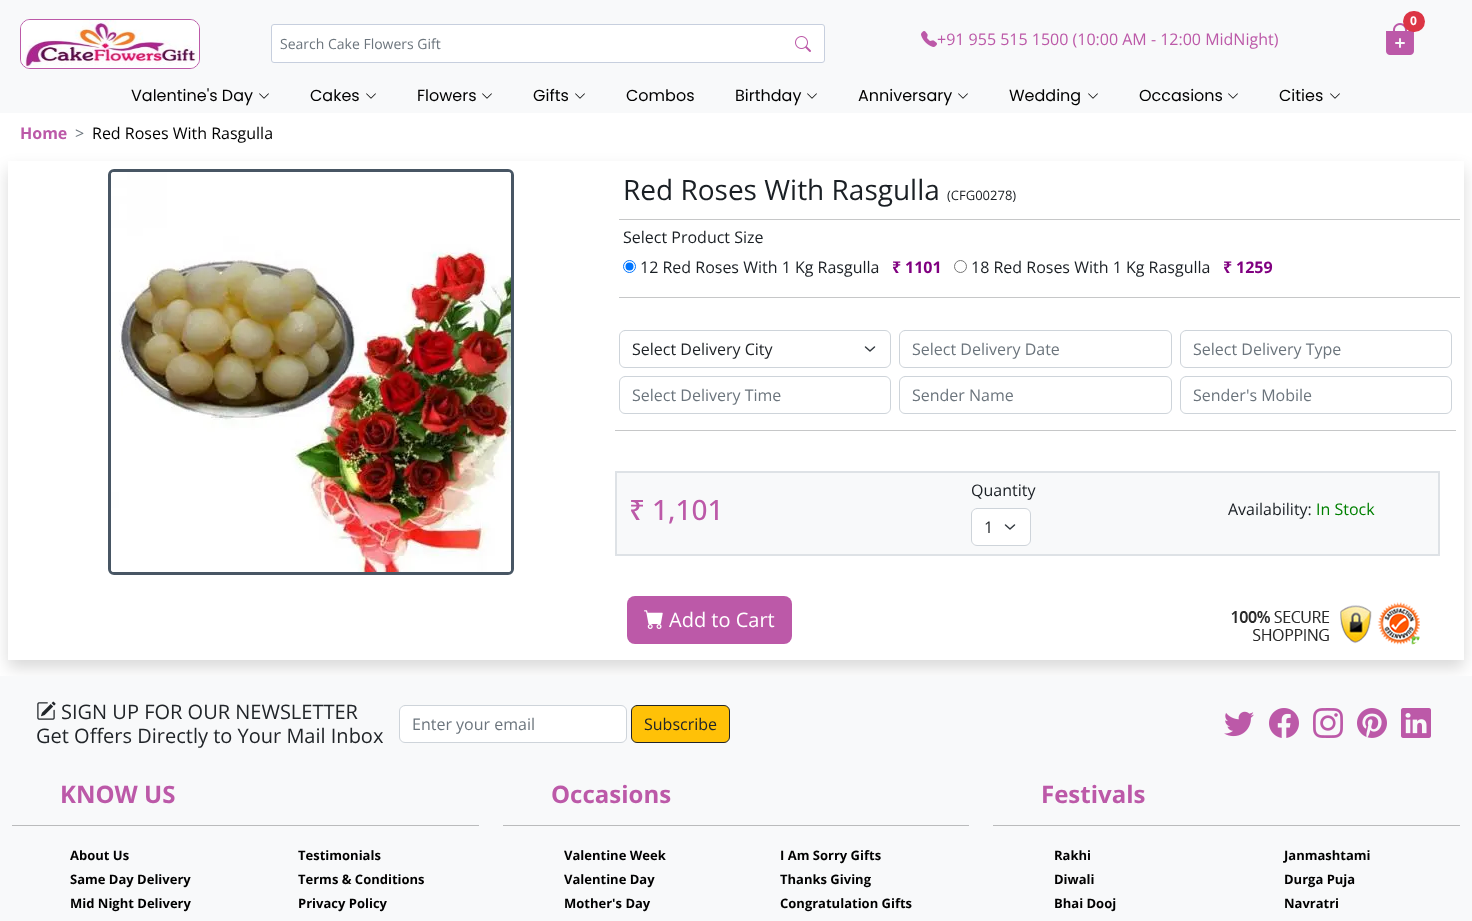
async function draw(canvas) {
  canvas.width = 1472
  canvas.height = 921
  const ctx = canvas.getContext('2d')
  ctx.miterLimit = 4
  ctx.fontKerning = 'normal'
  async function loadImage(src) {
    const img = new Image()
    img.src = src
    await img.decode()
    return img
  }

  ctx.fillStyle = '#fff'
  ctx.fillRect(0, 0, 1472, 921)
  ctx.fillStyle = '#f8f9fa'
  ctx.fillRect(0, 0, 1472, 113)
  ctx.beginPath()
  ctx.roundRect(20.5, 19.5, 179, 49, 9.5)
  ctx.strokeStyle = '#bc59a8'
  ctx.stroke()
  ctx.drawImage(await loadImage('image0.png'), 21, 20, 178, 48)
  ctx.fillStyle = '#fff'
  ctx.beginPath()
  ctx.roundRect(271.5, 24.5, 553, 38, 2.5)
  ctx.fill()
  ctx.strokeStyle = '#c7cfde'
  ctx.stroke()
  ctx.font = '14px Open Sans'
  ctx.fillStyle = '#6c757d'
  ctx.fillText('Search Cake Flowers Gift', 280, 49)
  ctx.drawImage(await loadImage('image1.png'), 795, 36, 16, 16)
  ctx.drawImage(await loadImage('image2.png'), 921, 31, 16, 16)
  ctx.font = '16px Open Sans'
  ctx.fillStyle = '#bc59a8'
  ctx.fillText('+91 955 515 1500 (10:00 AM - 12:00 MidNight)', 937, 45)
  ctx.drawImage(await loadImage('image3.png'), 1386, 23, 28, 32)
  ctx.fillStyle = '#dc3545'
  ctx.beginPath()
  ctx.roundRect(1403, 11, 22, 21, 10.5)
  ctx.fill()
  ctx.font = 'bold 12px Open Sans'
  ctx.fillStyle = '#fff'
  ctx.fillText('0', 1410, 25)
  ctx.font = '16px Poppins'
  ctx.fillStyle = '#000'
  ctx.fillText('Valentine\'s Day', 131, 101)
  ctx.drawImage(await loadImage('image4.png'), 259, 93, 10, 6)
  ctx.fillText('Cakes', 310, 101)
  ctx.drawImage(await loadImage('image4.png'), 366, 93, 10, 6)
  ctx.fillText('Flowers', 417, 101)
  ctx.drawImage(await loadImage('image4.png'), 482, 93, 10, 6)
  ctx.fillText('Gifts', 533, 101)
  ctx.drawImage(await loadImage('image4.png'), 575, 93, 10, 6)
  ctx.fillText('Combos', 626, 101)
  ctx.fillText('Birthday', 735, 101)
  ctx.drawImage(await loadImage('image4.png'), 807, 93, 10, 6)
  ctx.fillText('Anniversary', 858, 101)
  ctx.drawImage(await loadImage('image4.png'), 958, 93, 10, 6)
  ctx.fillText('Wedding', 1009, 101)
  ctx.drawImage(await loadImage('image4.png'), 1088, 93, 10, 6)
  ctx.fillText('Occasions', 1139, 101)
  ctx.drawImage(await loadImage('image4.png'), 1228, 93, 10, 6)
  ctx.fillText('Cities', 1279, 101)
  ctx.drawImage(await loadImage('image4.png'), 1330, 93, 10, 6)
  ctx.font = 'bold 16px Open Sans'
  ctx.fillStyle = '#bc59a8'
  ctx.fillText('Home', 20, 139)
  ctx.font = '16px Open Sans'
  ctx.fillStyle = '#6c757d'
  ctx.fillText('>', 75, 139)
  ctx.fillStyle = '#000'
  ctx.fillText('Red Roses With Rasgulla', 92, 139)
  ctx.save()
  ctx.beginPath()
  ctx.moveTo(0, 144)
  ctx.lineTo(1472, 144)
  ctx.lineTo(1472, 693)
  ctx.lineTo(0, 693)
  ctx.closePath()
  ctx.moveTo(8, 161)
  ctx.lineTo(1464, 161)
  ctx.lineTo(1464, 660)
  ctx.lineTo(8, 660)
  ctx.closePath()
  ctx.clip('evenodd')
  ctx.fillStyle = '#00000026'
  ctx.filter = 'blur(8px)'
  ctx.beginPath()
  ctx.rect(8, 169, 1456, 499)
  ctx.fill()
  ctx.filter = 'none'
  ctx.restore()
  ctx.beginPath()
  ctx.roundRect(109.5, 170.5, 403, 403, 4.5)
  ctx.strokeStyle = '#485664'
  ctx.lineWidth = 3
  ctx.stroke()
  ctx.drawImage(await loadImage('image5.png'), 111, 172, 400, 400)
  ctx.font = '28px Open Sans'
  ctx.fillStyle = '#1a1f24'
  ctx.fillText('Red Roses With Rasgulla', 623, 200)
  ctx.font = '13px Open Sans'
  ctx.fillText('(CFG00278)', 947, 200)
  ctx.fillStyle = '#c6c7c8'
  ctx.fillRect(619, 219, 841, 1)
  ctx.font = '16px Open Sans'
  ctx.fillStyle = '#1a1f24'
  ctx.fillText('Select Product Size', 623, 243)
  ctx.beginPath()
  ctx.arc(629.5, 266.5, 6, 0, 2 * Math.PI)
  ctx.strokeStyle = '#0075ff'
  ctx.lineWidth = 1
  ctx.stroke()
  ctx.fillStyle = '#0075ff'
  ctx.beginPath()
  ctx.arc(629.5, 266.5, 4, 0, 2 * Math.PI)
  ctx.fill()
  ctx.fillStyle = '#1a1f24'
  ctx.fillText('12 Red Roses With 1 Kg Rasgulla', 640, 273)
  ctx.font = 'bold 16px Noto Sans'
  ctx.fillStyle = '#800080'
  ctx.fillText('₹', 892, 273)
  ctx.font = 'bold 16px Open Sans'
  ctx.fillText('1101', 905, 273)
  ctx.beginPath()
  ctx.arc(960.5, 266.5, 6, 0, 2 * Math.PI)
  ctx.strokeStyle = '#767676'
  ctx.stroke()
  ctx.font = '16px Open Sans'
  ctx.fillStyle = '#1a1f24'
  ctx.fillText('18 Red Roses With 1 Kg Rasgulla', 971, 273)
  ctx.font = 'bold 16px Noto Sans'
  ctx.fillStyle = '#800080'
  ctx.fillText('₹', 1223, 273)
  ctx.font = 'bold 16px Open Sans'
  ctx.fillText('1259', 1236, 273)
  ctx.fillStyle = '#c6c7c8'
  ctx.fillRect(619, 297, 841, 1)
  ctx.beginPath()
  ctx.moveTo(865.5, 347)
  ctx.lineTo(870, 351)
  ctx.lineTo(874.5, 347)
  ctx.strokeStyle = '#343a40'
  ctx.lineWidth = 1.5
  ctx.lineCap = 'round'
  ctx.lineJoin = 'round'
  ctx.stroke()
  ctx.beginPath()
  ctx.roundRect(619.5, 330.5, 271, 37, 5.5)
  ctx.strokeStyle = '#ced4da'
  ctx.lineWidth = 1
  ctx.lineJoin = 'miter'
  ctx.stroke()
  ctx.font = '16px Open Sans'
  ctx.fillStyle = '#212529'
  ctx.fillText('Select Delivery City', 632, 355)
  ctx.beginPath()
  ctx.roundRect(899.5, 330.5, 272, 37, 5.5)
  ctx.stroke()
  ctx.fillStyle = '#6c757d'
  ctx.fillText('Select Delivery Date', 912, 355)
  ctx.beginPath()
  ctx.roundRect(1180.5, 330.5, 271, 37, 5.5)
  ctx.stroke()
  ctx.fillText('Select Delivery Type', 1193, 355)
  ctx.beginPath()
  ctx.roundRect(619.5, 376.5, 271, 37, 5.5)
  ctx.stroke()
  ctx.fillText('Select Delivery Time', 632, 401)
  ctx.beginPath()
  ctx.roundRect(899.5, 376.5, 272, 37, 5.5)
  ctx.stroke()
  ctx.fillText('Sender Name', 912, 401)
  ctx.beginPath()
  ctx.roundRect(1180.5, 376.5, 271, 37, 5.5)
  ctx.stroke()
  ctx.fillText('Sender\'s Mobile', 1193, 401)
  ctx.fillStyle = '#c6c7c8'
  ctx.fillRect(615, 430, 841, 1)
  ctx.fillStyle = '#f8f9fa'
  ctx.beginPath()
  ctx.rect(616, 472, 823, 83)
  ctx.fill()
  ctx.strokeStyle = '#dee2e6'
  ctx.lineWidth = 2
  ctx.stroke()
  ctx.font = '500 28px Noto Sans'
  ctx.fillStyle = '#bc59a8'
  ctx.fillText('₹', 629, 520)
  ctx.font = '500 28px Open Sans'
  ctx.fillText('1,101', 652, 520)
  ctx.font = '16px Open Sans'
  ctx.fillStyle = '#1a1f24'
  ctx.fillText('Quantity', 971, 496)
  ctx.fillStyle = '#fff'
  ctx.beginPath()
  ctx.roundRect(971, 508, 60, 38, 6)
  ctx.fill()
  ctx.beginPath()
  ctx.moveTo(1005.5, 525)
  ctx.lineTo(1010, 529)
  ctx.lineTo(1014.5, 525)
  ctx.strokeStyle = '#343a40'
  ctx.lineWidth = 1.5
  ctx.lineJoin = 'round'
  ctx.stroke()
  ctx.beginPath()
  ctx.roundRect(971.5, 508.5, 59, 37, 5.5)
  ctx.strokeStyle = '#ced4da'
  ctx.lineWidth = 1
  ctx.lineJoin = 'miter'
  ctx.stroke()
  ctx.fillStyle = '#212529'
  ctx.fillText('1', 984, 533)
  ctx.fillStyle = '#1a1f24'
  ctx.fillText('Availability:', 1228, 515)
  ctx.fillStyle = '#008000'
  ctx.fillText('In Stock', 1316, 515)
  ctx.fillStyle = '#bc59a8'
  ctx.beginPath()
  ctx.roundRect(627, 596, 165, 48, 8)
  ctx.fill()
  ctx.drawImage(await loadImage('image6.png'), 644, 610, 19, 19)
  ctx.font = '20px Open Sans'
  ctx.fillStyle = '#fff'
  ctx.fillText('Add to Cart', 669, 627)
  ctx.drawImage(await loadImage('image7.png'), 1231, 602, 189, 43)
  ctx.fillStyle = '#f8f9fa'
  ctx.fillRect(0, 676, 1472, 245)
  ctx.drawImage(await loadImage('image8.png'), 37, 701, 19, 19)
  ctx.fillStyle = '#212529'
  ctx.fillText('SIGN UP FOR OUR NEWSLETTER', 61, 719)
  ctx.fillText('Get Offers Directly to Your Mail Inbox', 36, 743)
  ctx.fillStyle = '#fff'
  ctx.beginPath()
  ctx.roundRect(399.5, 705.5, 227, 37, 5.5)
  ctx.fill()
  ctx.stroke()
  ctx.font = '16px Open Sans'
  ctx.fillStyle = '#6c757d'
  ctx.fillText('Enter your email', 412, 730)
  ctx.fillStyle = '#ffc107'
  ctx.beginPath()
  ctx.roundRect(631.5, 705.5, 98, 37, 5.5)
  ctx.fill()
  ctx.strokeStyle = '#212529'
  ctx.stroke()
  ctx.fillStyle = '#212529'
  ctx.fillText('Subscribe', 644, 730)
  ctx.drawImage(await loadImage('image9.png'), 1224, 711, 30, 26)
  ctx.drawImage(await loadImage('image10.png'), 1269, 708, 30, 30)
  ctx.drawImage(await loadImage('image11.png'), 1313, 708, 30, 30)
  ctx.drawImage(await loadImage('image12.png'), 1357, 708, 30, 30)
  ctx.drawImage(await loadImage('image13.png'), 1401, 708, 30, 30)
  ctx.font = 'bold 24px Open Sans'
  ctx.fillStyle = '#bc59a8'
  ctx.fillText('KNOW US', 60, 803)
  ctx.fillStyle = '#babbbc'
  ctx.fillRect(12, 825, 467, 1)
  ctx.font = 'bold 13px Open Sans'
  ctx.fillStyle = '#000'
  ctx.fillText('About Us', 70, 860)
  ctx.fillText('Same Day Delivery', 70, 884)
  ctx.fillText('Mid Night Delivery', 70, 908)
  ctx.fillText('Testimonials', 298, 860)
  ctx.fillText('Terms & Conditions', 298, 884)
  ctx.fillText('Privacy Policy', 298, 908)
  ctx.font = 'bold 24px Open Sans'
  ctx.fillStyle = '#bc59a8'
  ctx.fillText('Occasions', 551, 803)
  ctx.fillStyle = '#babbbc'
  ctx.fillRect(503, 825, 466, 1)
  ctx.font = 'bold 13px Open Sans'
  ctx.fillStyle = '#000'
  ctx.fillText('Valentine Week', 564, 860)
  ctx.fillText('Valentine Day', 564, 884)
  ctx.fillText('Mother\'s Day', 564, 908)
  ctx.fillText('I Am Sorry Gifts', 780, 860)
  ctx.fillText('Thanks Giving', 780, 884)
  ctx.fillText('Congratulation Gifts', 780, 908)
  ctx.font = 'bold 24px Open Sans'
  ctx.fillStyle = '#bc59a8'
  ctx.fillText('Festivals', 1041, 803)
  ctx.fillStyle = '#babbbc'
  ctx.fillRect(993, 825, 467, 1)
  ctx.font = 'bold 13px Open Sans'
  ctx.fillStyle = '#000'
  ctx.fillText('Rakhi', 1054, 860)
  ctx.fillText('Diwali', 1054, 884)
  ctx.fillText('Bhai Dooj', 1054, 908)
  ctx.fillText('Janmashtami', 1284, 860)
  ctx.fillText('Durga Puja', 1284, 884)
  ctx.fillText('Navratri', 1284, 908)
}

draw(document.querySelector('canvas'))
